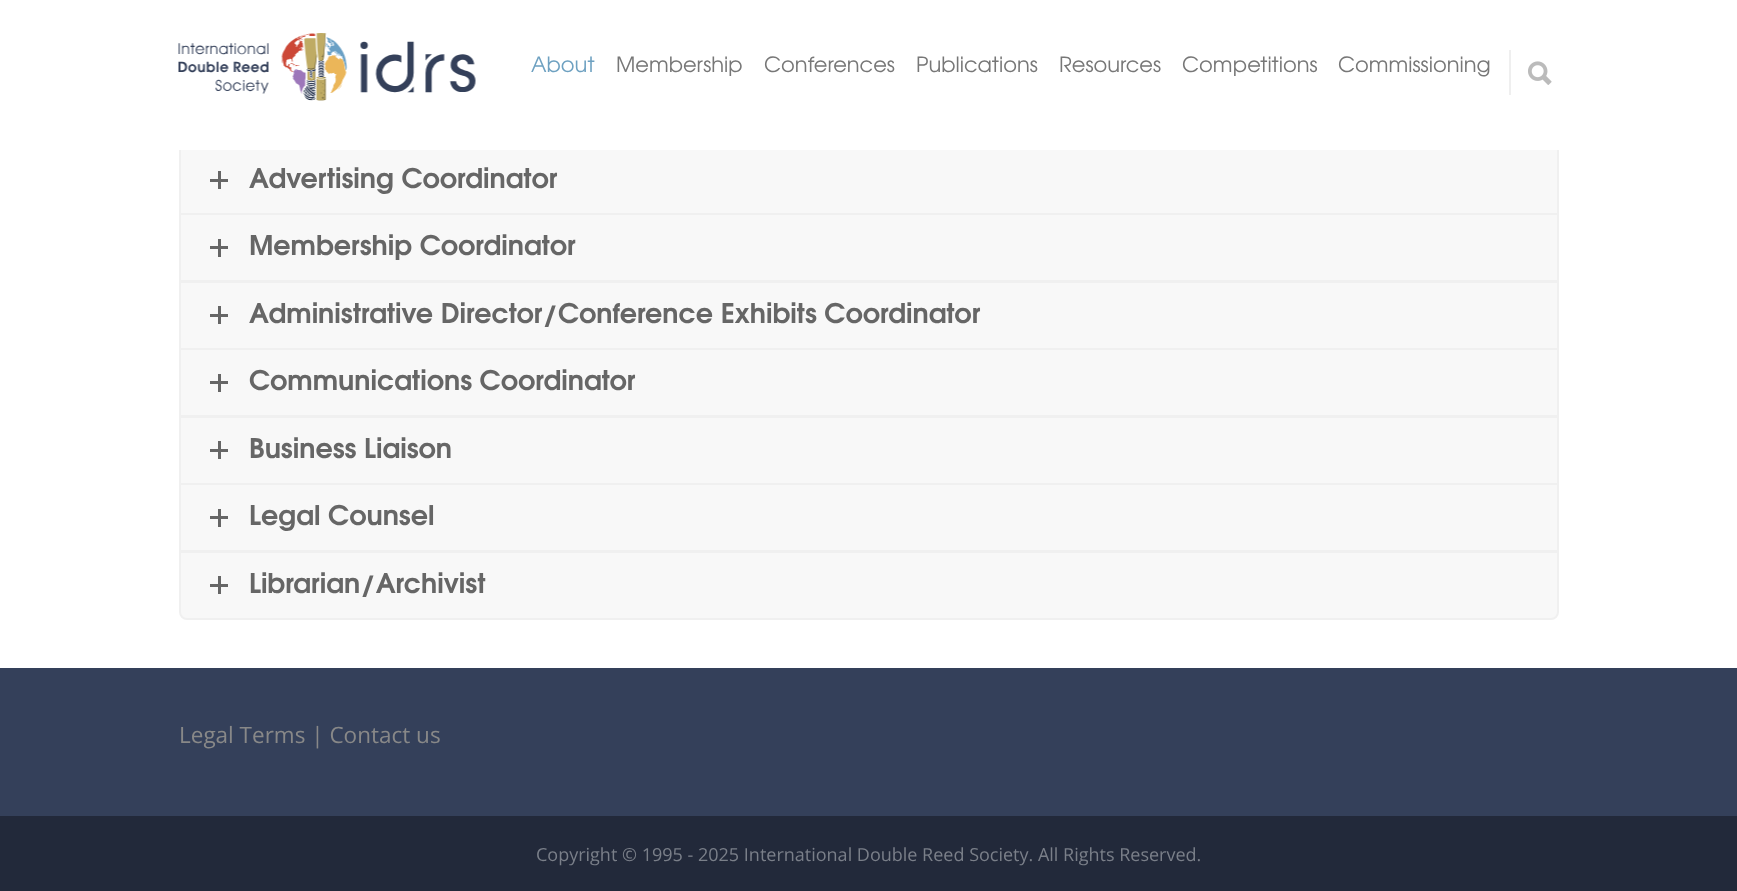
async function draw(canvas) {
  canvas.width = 1737
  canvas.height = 891
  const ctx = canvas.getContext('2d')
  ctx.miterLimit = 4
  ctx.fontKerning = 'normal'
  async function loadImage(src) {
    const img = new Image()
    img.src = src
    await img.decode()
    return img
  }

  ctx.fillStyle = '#fff'
  ctx.fillRect(0, 0, 1737, 891)
  ctx.fillStyle = '#f8f8f8'
  ctx.fillRect(181, 150, 1376, 63)
  ctx.strokeStyle = '#f0f0f0'
  ctx.lineWidth = 2
  ctx.strokeRect(180, 147, 1378, 67)
  ctx.fillStyle = '#fff'
  ctx.fillRect(179, 146, 1380, 4)
  ctx.drawImage(await loadImage('image0.png'), 178, 33, 298, 68)
  ctx.font = '21px TeX Gyre Adventor'
  ctx.fillStyle = '#6ea1c1'
  ctx.fillText('About', 531, 72)
  ctx.fillStyle = '#777'
  ctx.fillText('Membership', 616, 72)
  ctx.fillText('Conferences', 764, 72)
  ctx.fillText('Publications', 916, 72)
  ctx.fillText('Resources', 1059, 72)
  ctx.fillText('Competitions', 1182, 72)
  ctx.fillText('Commissioning', 1338, 72)
  ctx.fillStyle = '#efefef'
  ctx.fillRect(1509, 50, 2, 45)
  ctx.drawImage(await loadImage('image1.png'), 1528, 61, 24, 24)
  ctx.fillStyle = '#666'
  ctx.fillRect(210, 179, 18, 3)
  ctx.fillRect(218, 171, 3, 18)
  ctx.font = 'bold 27px TeX Gyre Adventor'
  ctx.fillText('Advertising Coordinator', 249, 188)
  ctx.fillStyle = '#f8f8f8'
  ctx.beginPath()
  ctx.rect(180, 214, 1378, 67)
  ctx.fill()
  ctx.stroke()
  ctx.fillStyle = '#666'
  ctx.fillRect(210, 246, 18, 3)
  ctx.fillRect(218, 239, 3, 18)
  ctx.fillText('Membership Coordinator', 249, 255)
  ctx.fillStyle = '#f8f8f8'
  ctx.beginPath()
  ctx.rect(180, 282, 1378, 67)
  ctx.fill()
  ctx.stroke()
  ctx.fillStyle = '#666'
  ctx.fillRect(210, 314, 18, 3)
  ctx.fillRect(218, 306, 3, 18)
  ctx.fillText('Administrative Director/Conference Exhibits Coordinator', 249, 323)
  ctx.fillStyle = '#f8f8f8'
  ctx.beginPath()
  ctx.rect(180, 349, 1378, 67)
  ctx.fill()
  ctx.stroke()
  ctx.fillStyle = '#666'
  ctx.fillRect(210, 381, 18, 3)
  ctx.fillRect(218, 374, 3, 18)
  ctx.fillText('Communications Coordinator', 249, 390)
  ctx.fillStyle = '#f8f8f8'
  ctx.beginPath()
  ctx.rect(180, 417, 1378, 67)
  ctx.fill()
  ctx.stroke()
  ctx.fillStyle = '#666'
  ctx.fillRect(210, 449, 18, 3)
  ctx.fillRect(218, 441, 3, 18)
  ctx.fillText('Business Liaison', 249, 458)
  ctx.fillStyle = '#f8f8f8'
  ctx.beginPath()
  ctx.rect(180, 484, 1378, 67)
  ctx.fill()
  ctx.stroke()
  ctx.fillStyle = '#666'
  ctx.fillRect(210, 516, 18, 3)
  ctx.fillRect(218, 509, 3, 18)
  ctx.fillText('Legal Counsel', 249, 525)
  ctx.fillStyle = '#f8f8f8'
  ctx.beginPath()
  ctx.roundRect(180, 552, 1378, 67, [0, 0, 7, 7])
  ctx.fill()
  ctx.stroke()
  ctx.fillStyle = '#666'
  ctx.fillRect(210, 584, 18, 3)
  ctx.fillRect(218, 576, 3, 18)
  ctx.fillText('Librarian/Archivist', 249, 593)
  ctx.fillStyle = '#34405a'
  ctx.fillRect(0, 668, 1737, 148)
  ctx.font = '22.5px Open Sans'
  ctx.fillStyle = '#888'
  ctx.fillText('Legal Terms | Contact us', 179, 743)
  ctx.fillStyle = '#22293a'
  ctx.fillRect(0, 816, 1737, 75)
  ctx.font = '18px Open Sans'
  ctx.fillStyle = '#7a7f89'
  ctx.fillText('Copyright © 1995 - 2025 International Double Reed Society. All Rights Reserved.', 536, 861)
}

draw(document.querySelector('canvas'))
